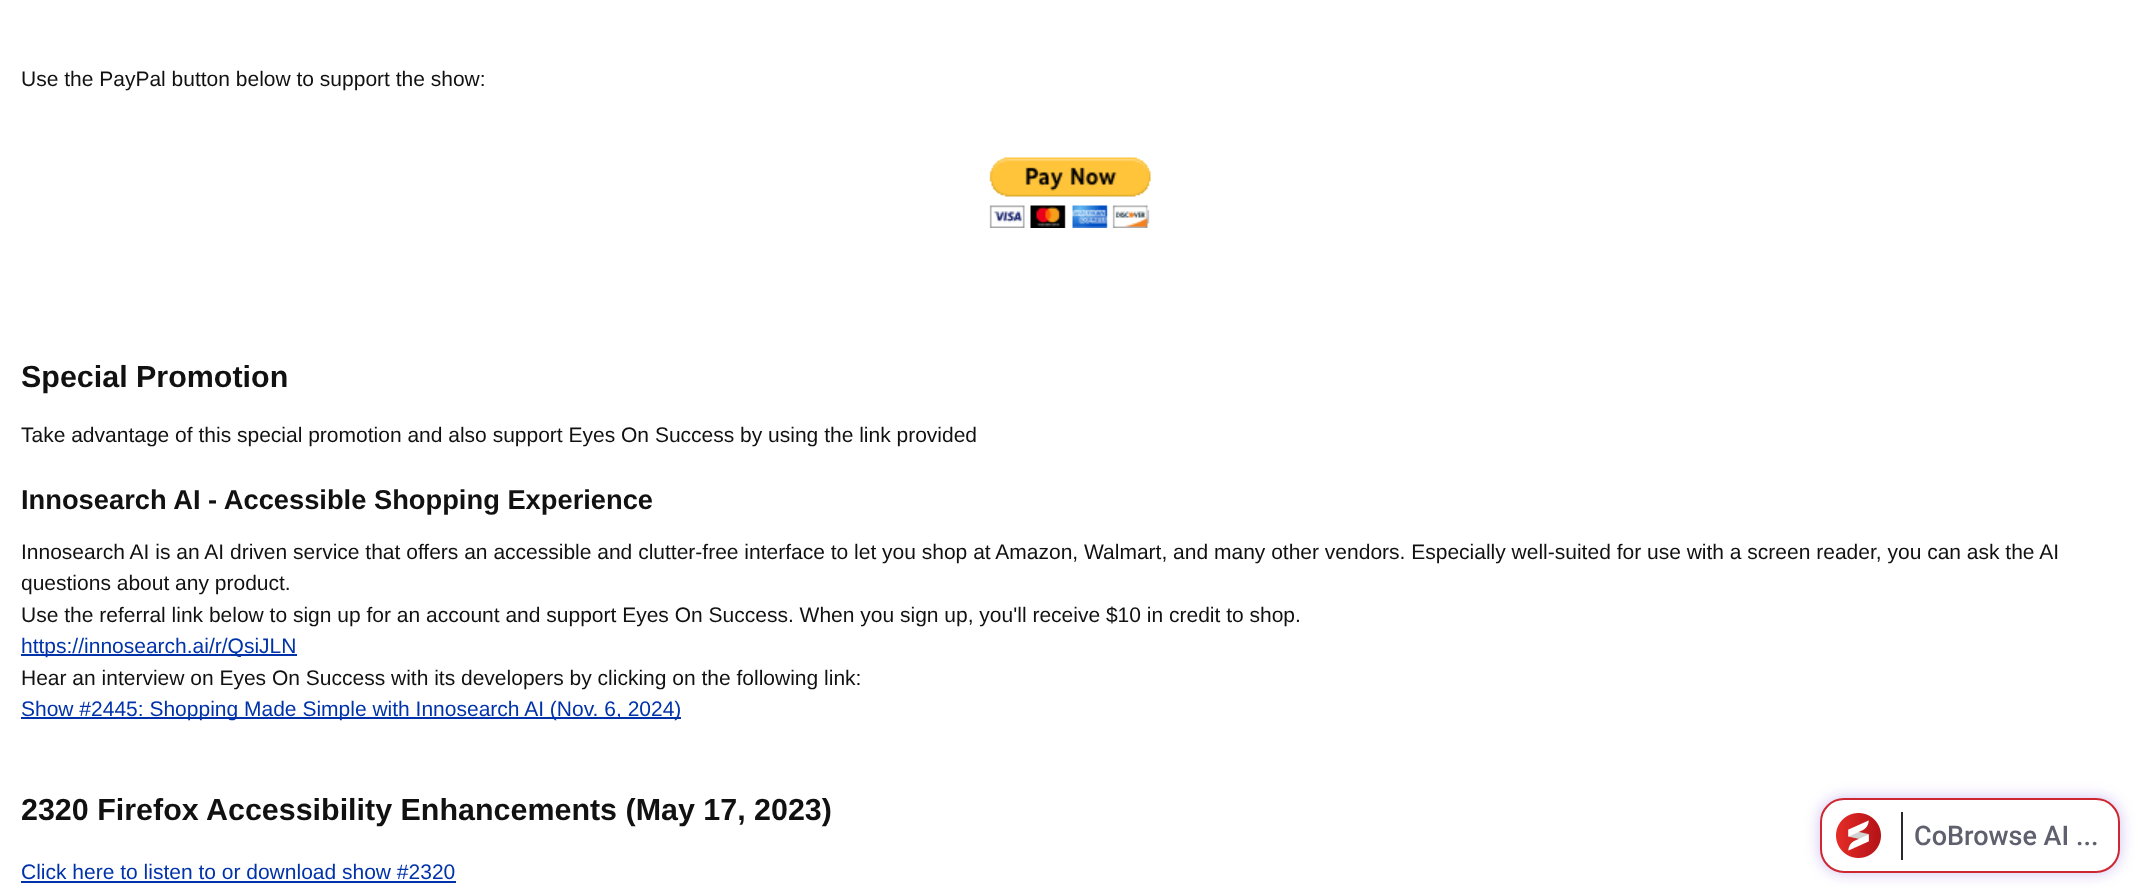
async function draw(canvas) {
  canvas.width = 2137
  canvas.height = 891
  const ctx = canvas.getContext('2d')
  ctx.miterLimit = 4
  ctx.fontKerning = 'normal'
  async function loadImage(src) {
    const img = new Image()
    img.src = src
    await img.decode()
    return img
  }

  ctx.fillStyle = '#fff'
  ctx.fillRect(0, 0, 2137, 891)
  ctx.font = '21px Liberation Sans'
  ctx.fillStyle = '#111'
  ctx.fillText('Use the PayPal button below to support the show:', 21, 86)
  ctx.drawImage(await loadImage('image0.png'), 989, 157, 162, 71)
  ctx.font = 'bold 30.45px Liberation Sans'
  ctx.fillText('Special Promotion', 21, 387)
  ctx.font = '21px Liberation Sans'
  ctx.fillText('Take advantage of this special promotion and also support Eyes On Success by using the link provided', 21, 442)
  ctx.font = 'bold 27.3px Liberation Sans'
  ctx.fillText('Innosearch AI - Accessible Shopping Experience', 21, 509)
  ctx.font = '21px Liberation Sans'
  ctx.fillText('Innosearch AI is an AI driven service that offers an accessible and clutter-free interface to let you shop at Amazon, Walmart, and many other vendors. Especially well-suited for use with a screen reader, you can ask the AI', 21, 559)
  ctx.fillText('questions about any product.', 21, 590)
  ctx.fillText('Use the referral link below to sign up for an account and support Eyes On Success. When you sign up, you\'ll receive $10 in credit to shop.', 21, 622)
  ctx.fillStyle = '#03a'
  ctx.fillRect(21, 654, 276, 2)
  ctx.fillText('https://innosearch.ai/r/QsiJLN', 21, 653)
  ctx.fillStyle = '#111'
  ctx.fillText('Hear an interview on Eyes On Success with its developers by clicking on the following link:', 21, 685)
  ctx.fillStyle = '#03a'
  ctx.fillRect(21, 717, 660, 2)
  ctx.fillText('Show #2445: Shopping Made Simple with Innosearch AI (Nov. 6, 2024)', 21, 716)
  ctx.font = 'bold 30.45px Liberation Sans'
  ctx.fillStyle = '#111'
  ctx.fillText('2320 Firefox Accessibility Enhancements (May 17, 2023)', 21, 820)
  ctx.fillStyle = '#440dcf40'
  ctx.filter = 'blur(7.5px)'
  ctx.beginPath()
  ctx.roundRect(1820, 798, 300, 75, 24)
  ctx.fill()
  ctx.filter = 'none'
  ctx.fillStyle = '#fff'
  ctx.beginPath()
  ctx.roundRect(1821, 799, 298, 73, 23)
  ctx.fill()
  ctx.strokeStyle = '#cd2732'
  ctx.lineWidth = 2
  ctx.stroke()
  ctx.drawImage(await loadImage('image1.png'), 1836, 813, 45, 45)
  ctx.fillStyle = '#28292f'
  ctx.fillRect(1901, 812, 2, 48)
  ctx.font = '500 27px Roboto'
  ctx.fillStyle = '#5f606d'
  ctx.fillText('CoBrowse AI ...', 1914, 845)
  ctx.font = '21px Liberation Sans'
  ctx.fillStyle = '#03a'
  ctx.fillText('Click here to listen to or download show #2320', 21, 879)
  ctx.fillRect(21, 881, 435, 2)
}

draw(document.querySelector('canvas'))
